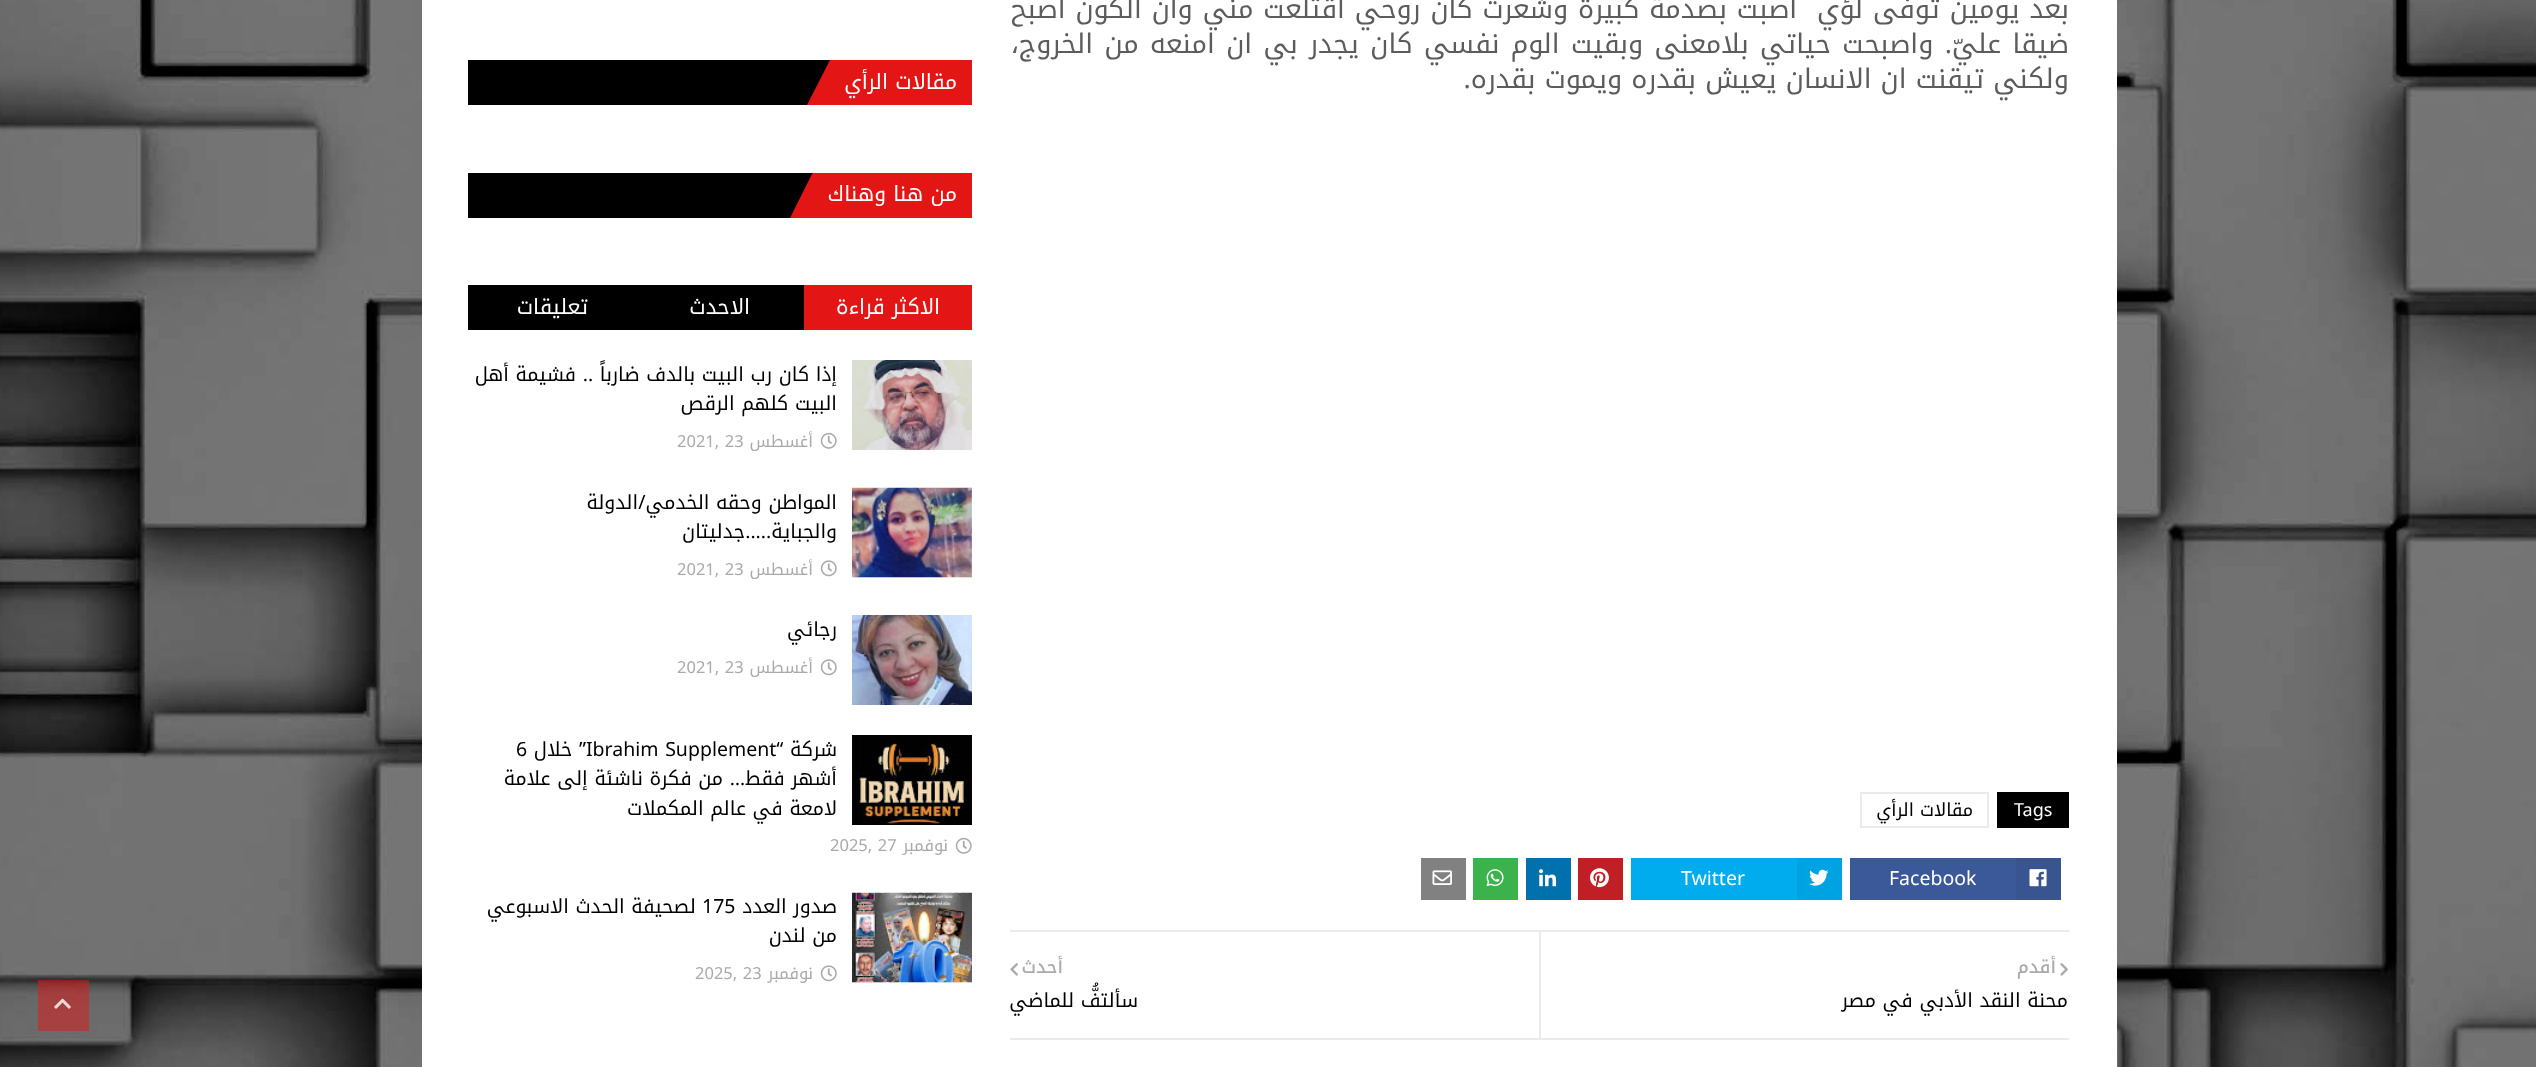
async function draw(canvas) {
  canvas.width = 2536
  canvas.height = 1067
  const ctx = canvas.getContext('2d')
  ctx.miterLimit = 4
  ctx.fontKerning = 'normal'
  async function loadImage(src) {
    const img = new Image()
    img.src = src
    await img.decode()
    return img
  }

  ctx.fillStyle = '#fff'
  ctx.fillRect(0, 0, 2536, 1067)
  ctx.drawImage(await loadImage('image0.png'), 0, 0, 2536, 1067)
  ctx.fillRect(422, 0, 1695, 1067)
  ctx.wordSpacing = '0.75px'
  ctx.direction = 'rtl'
  ctx.font = '27px Noto Kufi Arabic'
  ctx.fillStyle = '#5c5c5c'
  ctx.fillText('بعد يومين توفى لؤي  اصبت بصدمة كبيرة وشعرت كأن روحي اقتلعت مني وان الكون اصبح', 2069, 18)
  ctx.wordSpacing = '2.25px'
  ctx.fillText('ضيقا عليّ. واصبحت حياتي بلامعنى وبقيت الوم نفسي كان يجدر بي ان امنعه من الخروج،', 2069, 53)
  ctx.wordSpacing = '0px'
  ctx.fillText('ولكني تيقنت ان الانسان يعيش بقدره ويموت بقدره.', 2069, 88)
  ctx.fillStyle = '#000'
  ctx.fillRect(1997, 792, 72, 36)
  ctx.direction = 'ltr'
  ctx.font = '18px Noto Kufi Arabic'
  ctx.fillStyle = '#fff'
  ctx.fillText('Tags', 2014, 816)
  ctx.strokeStyle = '#ebebeb'
  ctx.lineWidth = 2
  ctx.strokeRect(1861, 793, 127, 34)
  ctx.direction = 'rtl'
  ctx.fillStyle = '#000'
  ctx.fillText('مقالات الرأي', 1973, 816)
  ctx.fillStyle = '#3b5999'
  ctx.fillRect(1850, 858, 166, 42)
  ctx.fillStyle = '#385591'
  ctx.fillRect(2016, 858, 45, 42)
  ctx.drawImage(await loadImage('image1.png'), 2029, 869, 18, 18)
  ctx.direction = 'ltr'
  ctx.font = '19.5px Noto Kufi Arabic'
  ctx.fillStyle = '#fff'
  ctx.fillText('Facebook', 1889, 885)
  ctx.fillStyle = '#00acee'
  ctx.fillRect(1631, 858, 166, 42)
  ctx.fillStyle = '#00a3e2'
  ctx.fillRect(1797, 858, 45, 42)
  ctx.drawImage(await loadImage('image2.png'), 1809, 869, 20, 17)
  ctx.fillStyle = '#fff'
  ctx.fillText('Twitter', 1681, 885)
  ctx.fillStyle = '#c01f25'
  ctx.fillRect(1578, 858, 45, 42)
  ctx.drawImage(await loadImage('image3.png'), 1590, 868, 19, 20)
  ctx.fillStyle = '#0071ac'
  ctx.fillRect(1526, 858, 45, 42)
  ctx.drawImage(await loadImage('image4.png'), 1539, 869, 18, 18)
  ctx.fillStyle = '#3cb24c'
  ctx.fillRect(1473, 858, 45, 42)
  ctx.drawImage(await loadImage('image5.png'), 1486, 869, 18, 18)
  ctx.fillStyle = '#818181'
  ctx.fillRect(1421, 858, 45, 42)
  ctx.drawImage(await loadImage('image6.png'), 1432, 870, 20, 15)
  ctx.fillStyle = '#ebebeb'
  ctx.fillRect(1010, 930, 1059, 2)
  ctx.fillRect(1010, 1038, 1059, 2)
  ctx.drawImage(await loadImage('image7.png'), 2060, 963, 8, 13)
  ctx.direction = 'rtl'
  ctx.font = '500 18px Noto Kufi Arabic'
  ctx.fillStyle = '#aaa'
  ctx.fillText('أقدم', 2056, 973)
  ctx.font = '19.5px Noto Kufi Arabic'
  ctx.fillStyle = '#000'
  ctx.fillText('محنة النقد الأدبي في مصر', 2068, 1007)
  ctx.fillStyle = '#ebebeb'
  ctx.fillRect(1539, 932, 2, 106)
  ctx.font = '500 18px Noto Kufi Arabic'
  ctx.fillStyle = '#aaa'
  ctx.fillText('أحدث', 1063, 973)
  ctx.drawImage(await loadImage('image8.png'), 1010, 963, 8, 13)
  ctx.font = '19.5px Noto Kufi Arabic'
  ctx.fillStyle = '#000'
  ctx.fillText('سألتفُّ للماضي', 1138, 1007)
  ctx.fillRect(468, 60, 362, 45)
  ctx.fillStyle = '#e31515'
  ctx.fillRect(830, 60, 142, 45)
  ctx.font = '21px Noto Kufi Arabic'
  ctx.fillStyle = '#fff'
  ctx.fillText('مقالات الرأي', 957, 89)
  ctx.fillStyle = '#e31515'
  ctx.beginPath()
  ctx.moveTo(830, 60)
  ctx.lineTo(830, 105)
  ctx.lineTo(807, 105)
  ctx.closePath()
  ctx.fill()
  ctx.fillStyle = '#000'
  ctx.fillRect(468, 173, 345, 45)
  ctx.fillStyle = '#e31515'
  ctx.fillRect(813, 173, 159, 45)
  ctx.fillStyle = '#fff'
  ctx.fillText('من هنا وهناك', 957, 201)
  ctx.fillStyle = '#e31515'
  ctx.beginPath()
  ctx.moveTo(813, 172)
  ctx.lineTo(813, 218)
  ctx.lineTo(790, 218)
  ctx.closePath()
  ctx.fill()
  ctx.fillStyle = '#000'
  ctx.fillRect(468, 285, 336, 45)
  ctx.fillStyle = '#e31515'
  ctx.fillRect(804, 285, 168, 45)
  ctx.fillStyle = '#fff'
  ctx.fillText('الاكثر قراءة', 940, 314)
  ctx.fillText('الاحدث', 750, 314)
  ctx.fillText('تعليقات', 588, 314)
  ctx.drawImage(await loadImage('image9.png'), 852, 360, 120, 90)
  ctx.font = '19.5px Noto Kufi Arabic'
  ctx.fillStyle = '#000'
  ctx.fillText('إذا كان رب البيت بالدف ضارباً .. فشيمة أهل', 837, 381)
  ctx.fillText('البيت كلهم الرقص', 837, 410)
  ctx.drawImage(await loadImage('image10.png'), 820, 432, 17, 17)
  ctx.font = '16.5px Noto Kufi Arabic'
  ctx.fillStyle = '#aaa'
  ctx.fillText('أغسطس', 813, 447)
  ctx.direction = 'ltr'
  ctx.fillText('2021, 23', 677, 447)
  ctx.fillStyle = '#f9f9f9'
  ctx.fillRect(852, 577, 120, 1)
  ctx.drawImage(await loadImage('image11.png'), 852, 487, 120, 91)
  ctx.direction = 'rtl'
  ctx.font = '19.5px Noto Kufi Arabic'
  ctx.fillStyle = '#000'
  ctx.fillText('المواطن وحقه الخدمي/الدولة', 837, 509)
  ctx.fillText('والجباية.....جدليتان', 837, 538)
  ctx.drawImage(await loadImage('image12.png'), 820, 560, 17, 17)
  ctx.font = '16.5px Noto Kufi Arabic'
  ctx.fillStyle = '#aaa'
  ctx.fillText('أغسطس', 813, 575)
  ctx.direction = 'ltr'
  ctx.fillText('2021, 23', 677, 575)
  ctx.drawImage(await loadImage('image13.png'), 852, 615, 120, 90)
  ctx.direction = 'rtl'
  ctx.font = '19.5px Noto Kufi Arabic'
  ctx.fillStyle = '#000'
  ctx.fillText('رجائي', 837, 636)
  ctx.drawImage(await loadImage('image12.png'), 820, 659, 17, 17)
  ctx.font = '16.5px Noto Kufi Arabic'
  ctx.fillStyle = '#aaa'
  ctx.fillText('أغسطس', 813, 673)
  ctx.direction = 'ltr'
  ctx.fillText('2021, 23', 677, 673)
  ctx.drawImage(await loadImage('image14.png'), 852, 735, 120, 90)
  ctx.direction = 'rtl'
  ctx.font = '19.5px Noto Kufi Arabic'
  ctx.fillStyle = '#000'
  ctx.fillText('شركة “', 837, 756)
  ctx.direction = 'ltr'
  ctx.fillText('Ibrahim Supplement', 586, 756)
  ctx.direction = 'rtl'
  ctx.fillText('” خلال', 586, 756)
  ctx.direction = 'ltr'
  ctx.fillText('6', 516, 756)
  ctx.direction = 'rtl'
  ctx.fillText('أشهر فقط… من فكرة ناشئة إلى علامة', 837, 785)
  ctx.fillText('لامعة في عالم المكملات', 837, 815)
  ctx.drawImage(await loadImage('image10.png'), 955, 837, 17, 17)
  ctx.font = '16.5px Noto Kufi Arabic'
  ctx.fillStyle = '#aaa'
  ctx.fillText('نوفمبر', 948, 851)
  ctx.direction = 'ltr'
  ctx.fillText('2025, 27', 830, 851)
  ctx.fillStyle = '#f9f9f9'
  ctx.fillRect(852, 982, 120, 1)
  ctx.drawImage(await loadImage('image15.png'), 852, 892, 120, 91)
  ctx.direction = 'rtl'
  ctx.font = '19.5px Noto Kufi Arabic'
  ctx.fillStyle = '#000'
  ctx.fillText('صدور العدد', 837, 913)
  ctx.direction = 'ltr'
  ctx.fillText('175', 702, 913)
  ctx.direction = 'rtl'
  ctx.fillText('لصحيفة الحدث الاسبوعي', 696, 913)
  ctx.fillText('من لندن', 837, 942)
  ctx.drawImage(await loadImage('image12.png'), 820, 965, 17, 17)
  ctx.font = '16.5px Noto Kufi Arabic'
  ctx.fillStyle = '#aaa'
  ctx.fillText('نوفمبر', 813, 979)
  ctx.direction = 'ltr'
  ctx.fillText('2025, 23', 695, 979)
  ctx.fillStyle = '#e3151580'
  ctx.fillRect(38, 980, 51, 51)
  ctx.drawImage(await loadImage('image16.png'), 54, 998, 17, 11)
}

draw(document.querySelector('canvas'))
